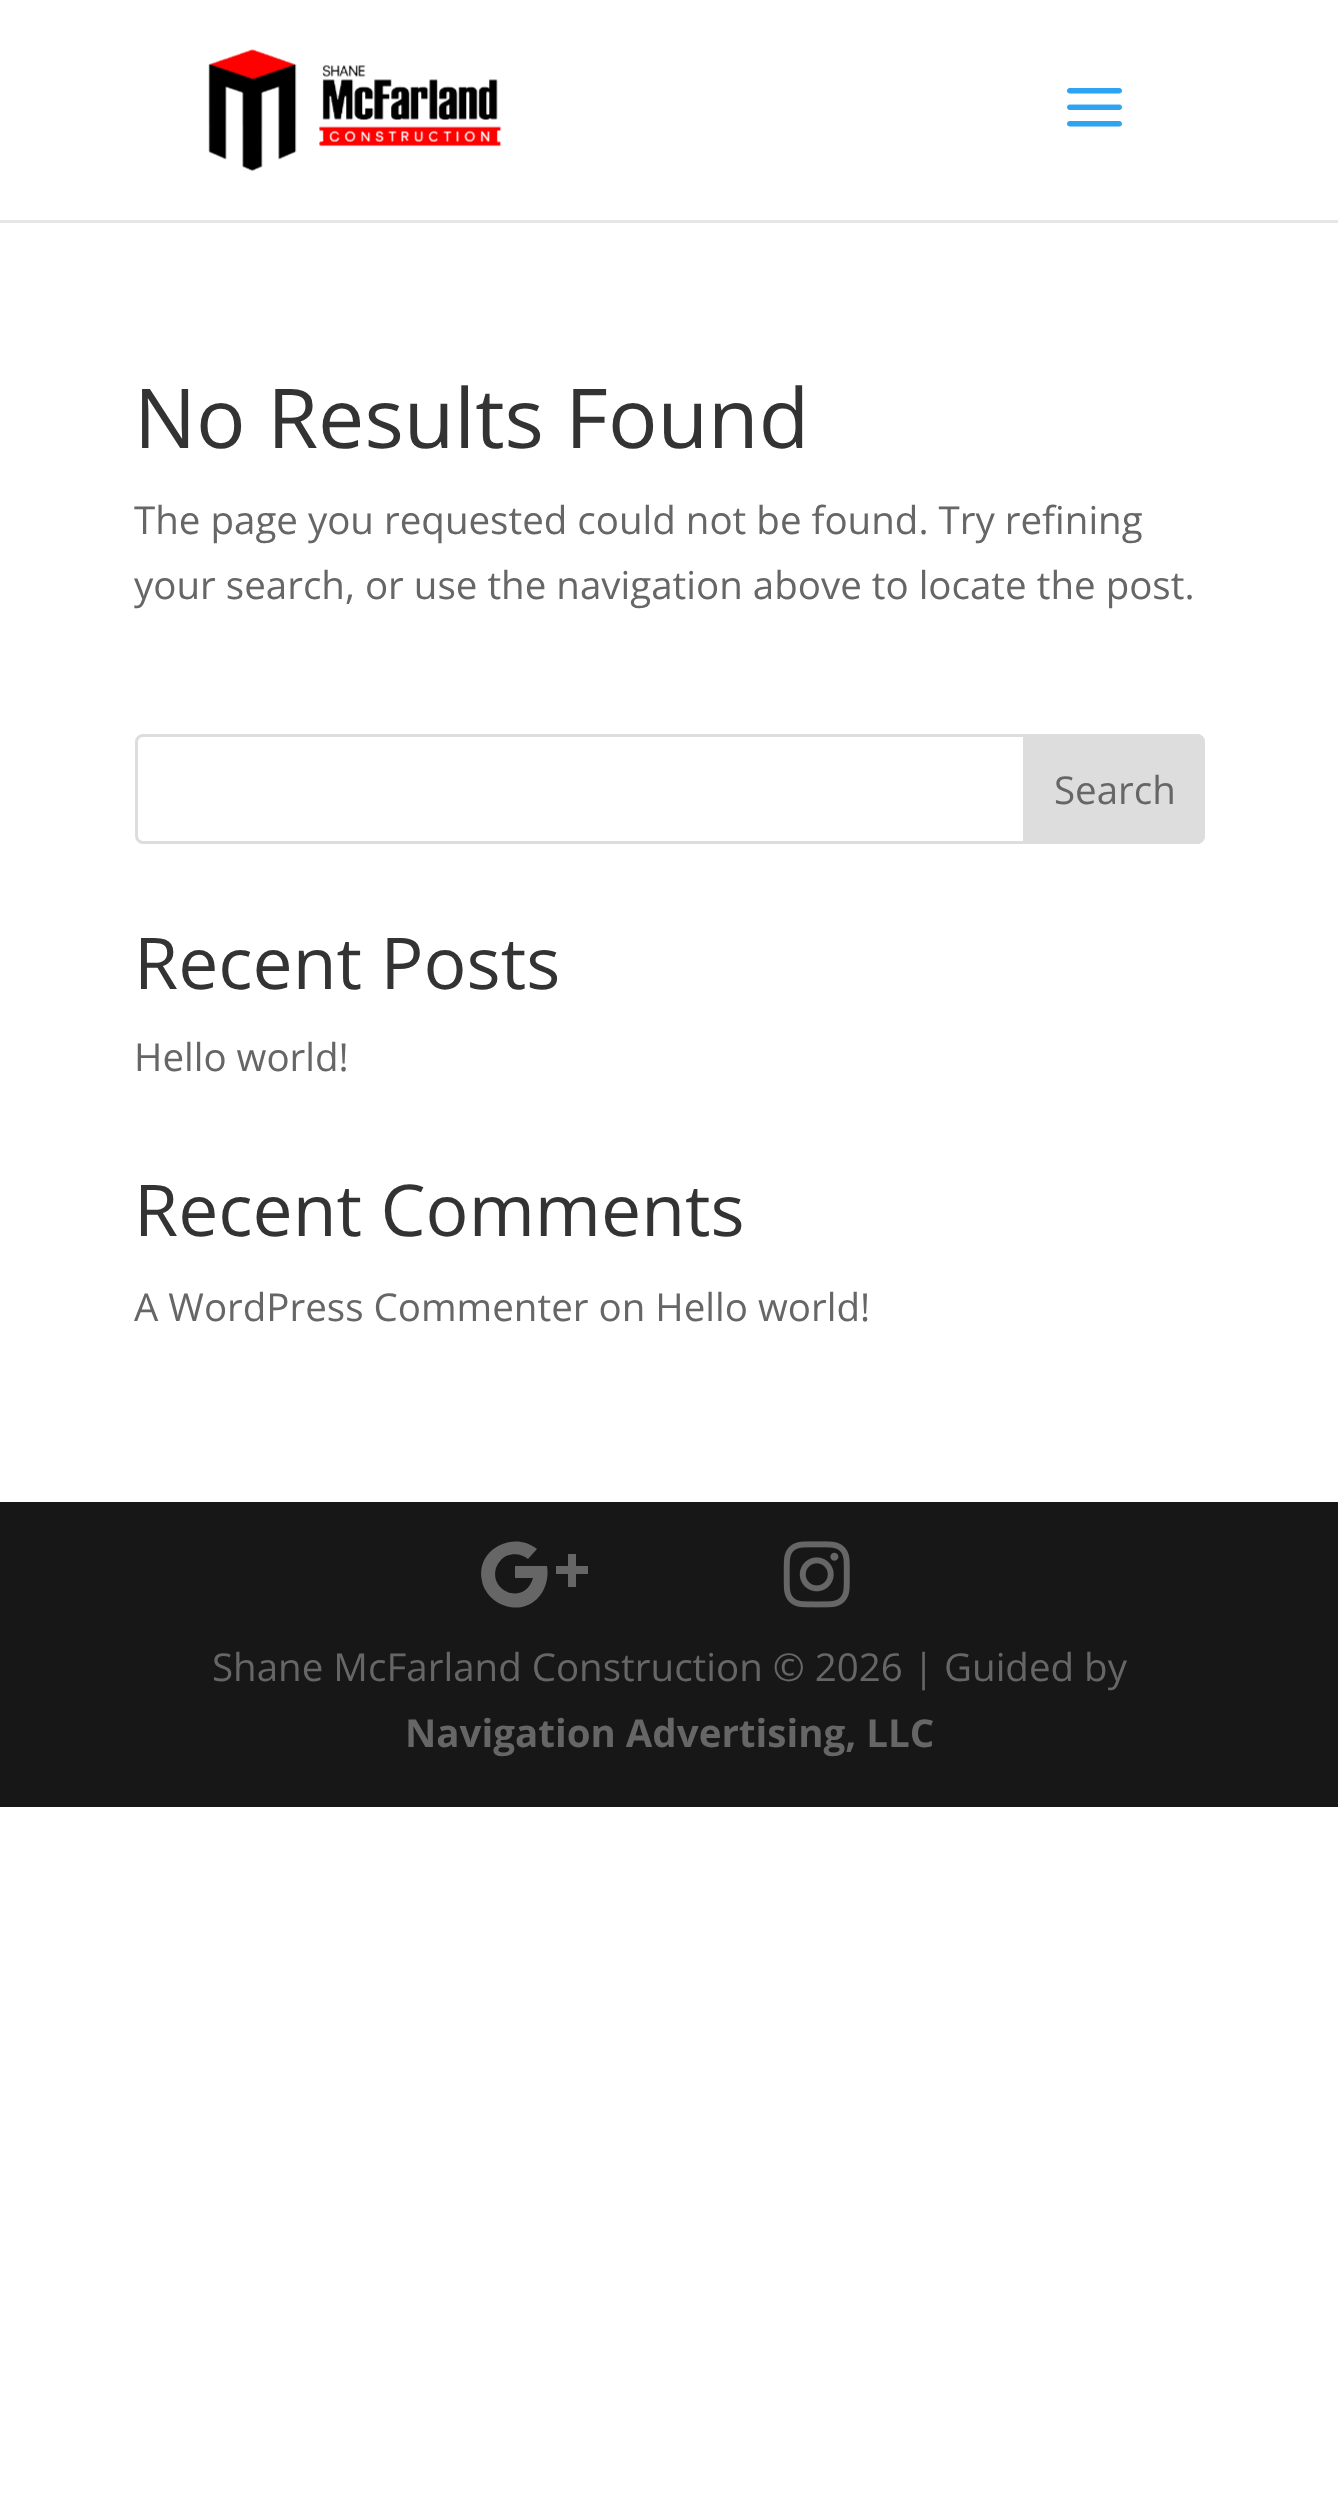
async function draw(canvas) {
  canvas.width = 1338
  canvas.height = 2502
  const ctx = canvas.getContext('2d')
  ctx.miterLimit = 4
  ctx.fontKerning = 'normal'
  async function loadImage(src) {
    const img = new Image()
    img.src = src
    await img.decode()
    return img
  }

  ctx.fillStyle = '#fff'
  ctx.fillRect(0, 0, 1338, 2502)
  ctx.fillStyle = '#e6e6e6'
  ctx.fillRect(0, 220, 1338, 3)
  ctx.drawImage(await loadImage('image0.png'), 208, 49, 294, 122)
  ctx.drawImage(await loadImage('image1.png'), 1067, 88, 55, 39)
  ctx.font = '82.5px Open Sans'
  ctx.fillStyle = '#333'
  ctx.fillText('No Results Found', 134, 448)
  ctx.font = '38.5px Open Sans'
  ctx.fillStyle = '#666'
  ctx.fillText('The page you requested could not be found. Try refining', 134, 534)
  ctx.fillText('your search, or use the navigation above to locate the post.', 134, 599)
  ctx.beginPath()
  ctx.roundRect(136.5, 735.5, 1067, 107, 6.5)
  ctx.strokeStyle = '#ddd'
  ctx.lineWidth = 3
  ctx.stroke()
  ctx.fillStyle = '#ddd'
  ctx.beginPath()
  ctx.roundRect(1024.5, 735.5, 179, 107, [0, 6.5, 6.5, 0])
  ctx.fill()
  ctx.stroke()
  ctx.fillStyle = '#666'
  ctx.fillText('Search', 1054, 804)
  ctx.font = '71.5px Open Sans'
  ctx.fillStyle = '#333'
  ctx.fillText('Recent Posts', 134, 989)
  ctx.font = '38.5px Open Sans'
  ctx.fillStyle = '#666'
  ctx.fillText('Hello world!', 134, 1071)
  ctx.font = '71.5px Open Sans'
  ctx.fillStyle = '#333'
  ctx.fillText('Recent Comments', 134, 1236)
  ctx.font = '38.5px Open Sans'
  ctx.fillStyle = '#666'
  ctx.fillText('A WordPress Commenter on Hello world!', 134, 1321)
  ctx.fillStyle = '#171717'
  ctx.fillRect(0, 1502, 1338, 305)
  ctx.fillStyle = '#666'
  ctx.beginPath()
  ctx.moveTo(515, 1566)
  ctx.lineTo(515, 1578)
  ctx.lineTo(533, 1578)
  ctx.bezierCurveTo(525, 1606, 489, 1592, 496, 1568)
  ctx.bezierCurveTo(498, 1563, 502, 1558, 506, 1556)
  ctx.bezierCurveTo(514, 1553, 522, 1554, 528, 1559)
  ctx.lineTo(537, 1549)
  ctx.bezierCurveTo(514, 1530, 475, 1549, 482, 1581)
  ctx.bezierCurveTo(483, 1588, 488, 1595, 494, 1600)
  ctx.bezierCurveTo(502, 1606, 512, 1609, 522, 1607)
  ctx.bezierCurveTo(541, 1603, 550, 1583, 547, 1566)
  ctx.closePath()
  ctx.moveTo(588, 1566)
  ctx.lineTo(576, 1566)
  ctx.lineTo(576, 1554)
  ctx.lineTo(568, 1554)
  ctx.lineTo(568, 1566)
  ctx.lineTo(556, 1566)
  ctx.lineTo(556, 1574)
  ctx.lineTo(568, 1574)
  ctx.lineTo(568, 1587)
  ctx.lineTo(576, 1587)
  ctx.lineTo(576, 1574)
  ctx.lineTo(588, 1574)
  ctx.closePath()
  ctx.fill()
  ctx.drawImage(await loadImage('image2.png'), 783, 1541, 67, 67)
  ctx.fillText('Shane McFarland Construction © 2026 | Guided by', 212, 1681)
  ctx.font = 'bold 38.5px Open Sans'
  ctx.fillText('Navigation Advertising, LLC', 405, 1747)
}

draw(document.querySelector('canvas'))
